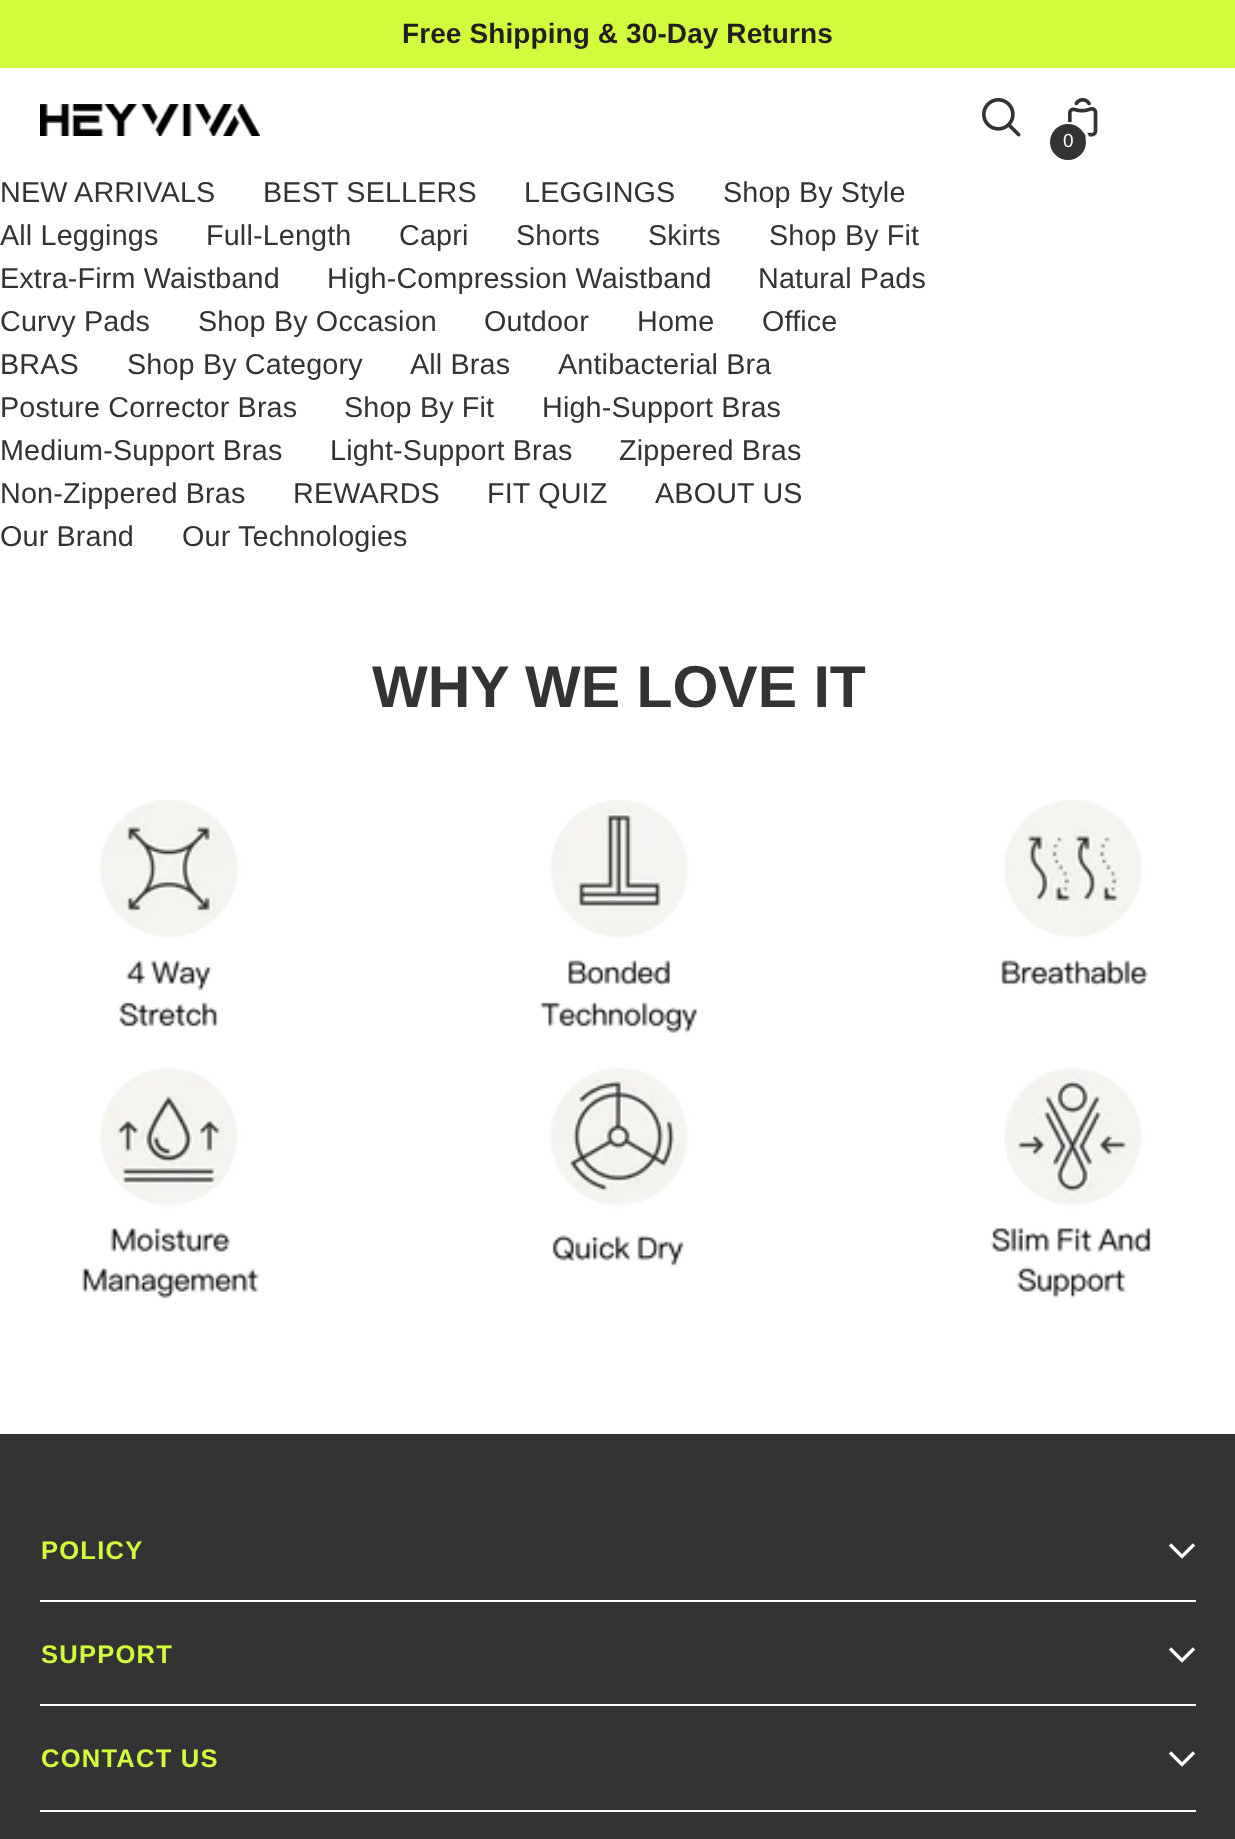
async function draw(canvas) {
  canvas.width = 1235
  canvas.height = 1839
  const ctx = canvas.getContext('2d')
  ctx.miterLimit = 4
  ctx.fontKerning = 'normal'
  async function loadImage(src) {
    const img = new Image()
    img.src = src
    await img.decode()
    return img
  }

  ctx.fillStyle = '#fff'
  ctx.fillRect(0, 0, 1235, 1839)
  ctx.fillStyle = '#d2fb3e'
  ctx.fillRect(0, 0, 1235, 68)
  ctx.letterSpacing = '0.1px'
  ctx.font = 'bold 28px Arimo'
  ctx.fillStyle = '#231e20'
  ctx.fillText('Free Shipping & 30-Day Returns', 402, 43)
  ctx.drawImage(await loadImage('image0.png'), 40, 104, 220, 32)
  ctx.drawImage(await loadImage('image1.png'), 982, 98, 39, 39)
  ctx.drawImage(await loadImage('image2.png'), 1068, 98, 30, 39)
  ctx.beginPath()
  ctx.arc(1069, 143, 19.5, 0, 2 * Math.PI)
  ctx.strokeStyle = '#fff'
  ctx.lineWidth = 3
  ctx.stroke()
  ctx.fillStyle = '#333'
  ctx.beginPath()
  ctx.arc(1068, 142, 18, 0, 2 * Math.PI)
  ctx.fill()
  ctx.letterSpacing = '0.15px'
  ctx.font = '19px Arimo'
  ctx.fillStyle = '#fff'
  ctx.fillText('0', 1063, 147)
  ctx.font = '28.75px Arimo'
  ctx.fillStyle = '#333'
  ctx.fillText('NEW ARRIVALS', 0, 202)
  ctx.fillText('BEST SELLERS', 263, 202)
  ctx.fillText('LEGGINGS', 524, 202)
  ctx.fillText('Shop By Style', 723, 202)
  ctx.fillText('All Leggings', 0, 245)
  ctx.fillText('Full-Length', 206, 245)
  ctx.fillText('Capri', 399, 245)
  ctx.fillText('Shorts', 516, 245)
  ctx.fillText('Skirts', 648, 245)
  ctx.fillText('Shop By Fit', 769, 245)
  ctx.fillText('Extra-Firm Waistband', 0, 288)
  ctx.fillText('High-Compression Waistband', 327, 288)
  ctx.fillText('Natural Pads', 758, 288)
  ctx.fillText('Curvy Pads', 0, 331)
  ctx.fillText('Shop By Occasion', 198, 331)
  ctx.fillText('Outdoor', 484, 331)
  ctx.fillText('Home', 637, 331)
  ctx.fillText('Office', 762, 331)
  ctx.fillText('BRAS', 0, 374)
  ctx.fillText('Shop By Category', 127, 374)
  ctx.fillText('All Bras', 410, 374)
  ctx.fillText('Antibacterial Bra', 558, 374)
  ctx.fillText('Posture Corrector Bras', 0, 417)
  ctx.fillText('Shop By Fit', 344, 417)
  ctx.fillText('High-Support Bras', 542, 417)
  ctx.fillText('Medium-Support Bras', 0, 460)
  ctx.fillText('Light-Support Bras', 330, 460)
  ctx.fillText('Zippered Bras', 619, 460)
  ctx.fillText('Non-Zippered Bras', 0, 503)
  ctx.fillText('REWARDS', 293, 503)
  ctx.fillText('FIT QUIZ', 487, 503)
  ctx.fillText('ABOUT US', 655, 503)
  ctx.fillText('Our Brand', 0, 546)
  ctx.fillText('Our Technologies', 182, 546)
  ctx.letterSpacing = '0px'
  ctx.font = 'bold 59px Arimo'
  ctx.fillText('WHY WE LOVE IT', 372, 707)
  ctx.drawImage(await loadImage('image3.png'), 82, 800, 1069, 498)
  ctx.fillRect(0, 1434, 1235, 405)
  ctx.fillStyle = '#fff'
  ctx.fillRect(40, 1600, 1156, 2)
  ctx.letterSpacing = '1.25px'
  ctx.font = 'bold 25.5px Arimo'
  ctx.fillStyle = '#d2fb3e'
  ctx.fillText('POLICY', 41, 1559)
  ctx.beginPath()
  ctx.moveTo(1170, 1544.5)
  ctx.lineTo(1182, 1556.5)
  ctx.lineTo(1194, 1544.5)
  ctx.lineWidth = 3.2
  ctx.stroke()
  ctx.fillStyle = '#fff'
  ctx.fillRect(40, 1704, 1156, 2)
  ctx.fillStyle = '#d2fb3e'
  ctx.fillText('SUPPORT', 41, 1663)
  ctx.beginPath()
  ctx.moveTo(1170, 1648.5)
  ctx.lineTo(1182, 1660.5)
  ctx.lineTo(1194, 1648.5)
  ctx.stroke()
  ctx.fillStyle = '#fff'
  ctx.fillRect(40, 1810, 1156, 2)
  ctx.fillStyle = '#d2fb3e'
  ctx.fillText('CONTACT US', 41, 1767)
  ctx.beginPath()
  ctx.moveTo(1170, 1752.5)
  ctx.lineTo(1182, 1764.5)
  ctx.lineTo(1194, 1752.5)
  ctx.stroke()
}

draw(document.querySelector('canvas'))
